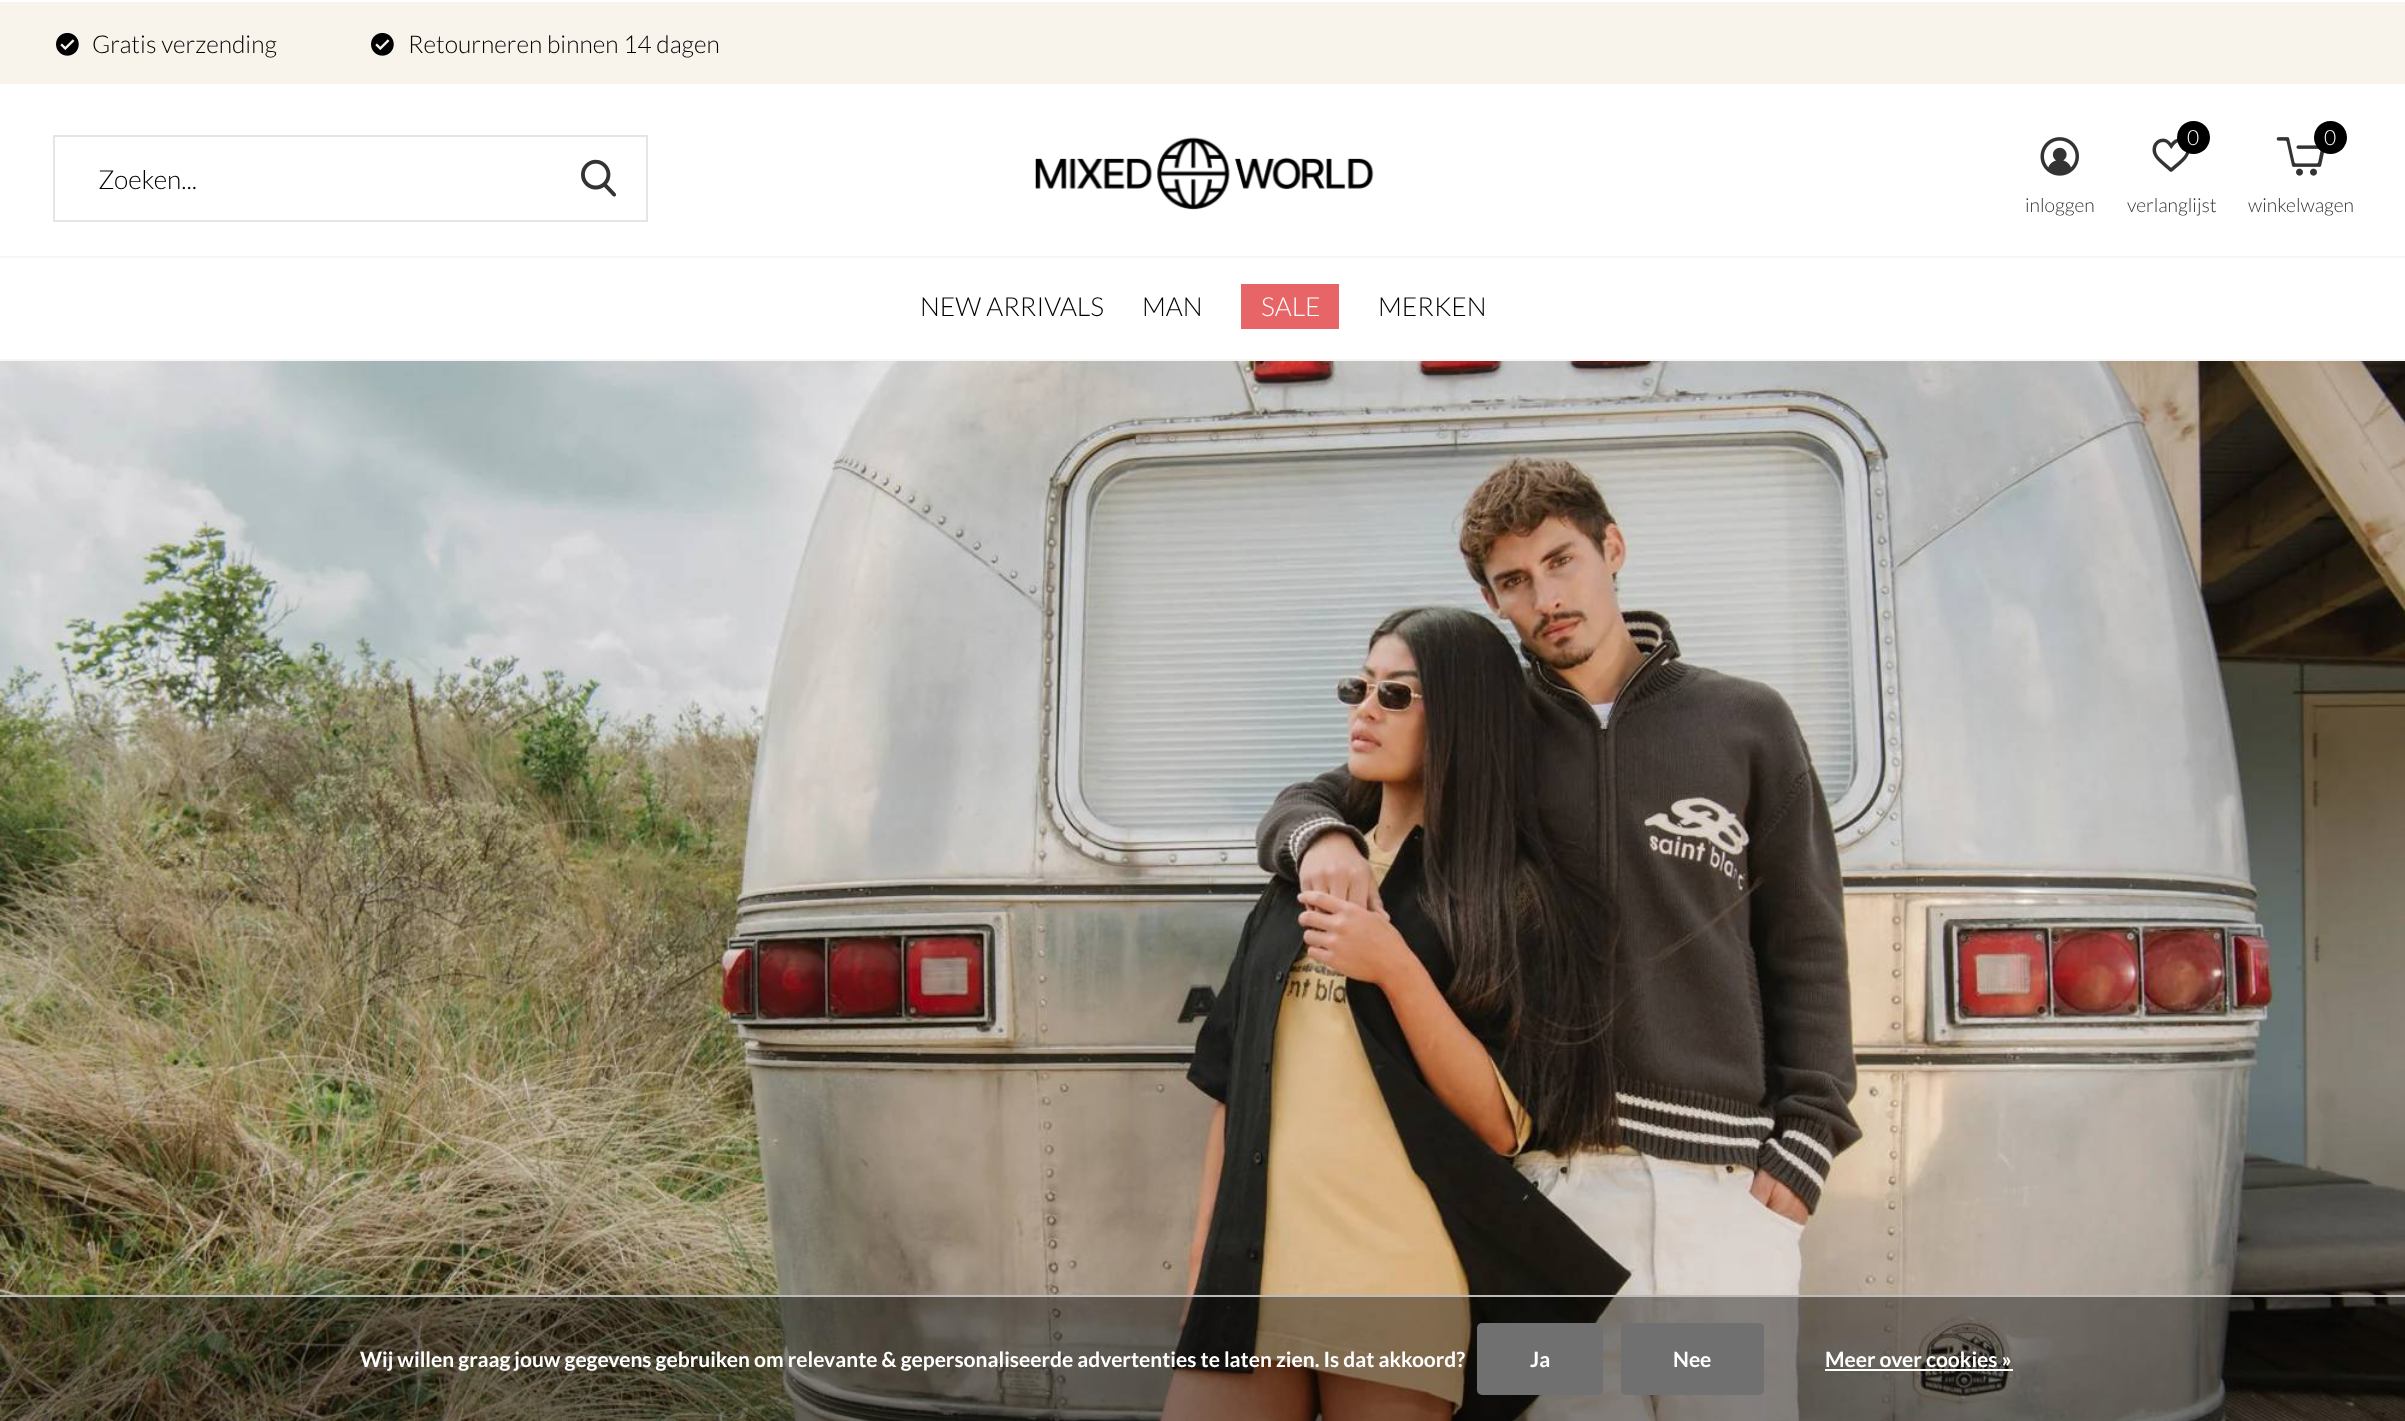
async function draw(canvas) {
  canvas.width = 2405
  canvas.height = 1421
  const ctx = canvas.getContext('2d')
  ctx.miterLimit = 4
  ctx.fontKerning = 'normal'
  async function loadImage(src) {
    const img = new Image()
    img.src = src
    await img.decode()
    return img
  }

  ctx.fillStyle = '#fff'
  ctx.fillRect(0, 0, 2405, 1421)
  ctx.fillStyle = '#f8f4ec'
  ctx.fillRect(0, 2, 2405, 82)
  ctx.drawImage(await loadImage('image0.png'), 56, 32, 23, 24)
  ctx.font = '300 24.5px Lato'
  ctx.fillStyle = '#000'
  ctx.fillText('Gratis verzending', 92, 53)
  ctx.drawImage(await loadImage('image0.png'), 371, 32, 23, 24)
  ctx.fillText('Retourneren binnen 14 dagen', 408, 53)
  ctx.drawImage(await loadImage('image1.png'), 2040, 137, 39, 39)
  ctx.font = '300 19.25px Lato'
  ctx.fillStyle = '#333'
  ctx.fillText('inloggen', 2025, 212)
  ctx.drawImage(await loadImage('image2.png'), 2152, 138, 37, 34)
  ctx.fillStyle = '#000'
  ctx.beginPath()
  ctx.arc(2193.5, 137.5, 16.5, 0, 2 * Math.PI)
  ctx.fill()
  ctx.font = '300 21px Lato'
  ctx.fillStyle = '#fff'
  ctx.fillText('0', 2187, 145)
  ctx.font = '300 19.25px Lato'
  ctx.fillStyle = '#333'
  ctx.fillText('verlanglijst', 2127, 212)
  ctx.drawImage(await loadImage('image3.png'), 2276, 137, 49, 39)
  ctx.fillStyle = '#000'
  ctx.beginPath()
  ctx.arc(2330.5, 137.5, 16.5, 0, 2 * Math.PI)
  ctx.fill()
  ctx.font = '300 21px Lato'
  ctx.fillStyle = '#fff'
  ctx.fillText('0', 2324, 145)
  ctx.font = '300 19.25px Lato'
  ctx.fillStyle = '#333'
  ctx.fillText('winkelwagen', 2248, 212)
  ctx.fillStyle = '#f6f6f6'
  ctx.fillRect(0, 256, 2405, 2)
  ctx.fillRect(0, 359, 2405, 2)
  ctx.font = '300 26.25px Lato'
  ctx.fillStyle = '#000'
  ctx.fillText('NEW ARRIVALS', 920, 316)
  ctx.fillText('MAN', 1142, 316)
  ctx.fillStyle = '#e76567'
  ctx.fillRect(1241, 284, 98, 45)
  ctx.fillStyle = '#fff'
  ctx.fillText('SALE', 1261, 316)
  ctx.fillStyle = '#000'
  ctx.fillText('MERKEN', 1378, 316)
  ctx.strokeStyle = '#e5e5e5'
  ctx.lineWidth = 2
  ctx.strokeRect(54, 136, 593, 85)
  ctx.fillText('Zoeken...', 98, 189)
  ctx.drawImage(await loadImage('image4.png'), 581, 159, 35, 38)
  ctx.drawImage(await loadImage('image5.png'), 1035, 137, 339, 73)
  ctx.drawImage(await loadImage('image6.png'), 0, 361, 2405, 1060)
  ctx.fillStyle = '#00000066'
  ctx.fillRect(0, 1297, 2405, 124)
  ctx.fillStyle = '#bbb'
  ctx.fillRect(0, 1295, 2405, 2)
  ctx.font = 'bold 21px Lato'
  ctx.fillStyle = '#fff'
  ctx.fillText('Wij willen graag jouw gegevens gebruiken om relevante & gepersonaliseerde advertenties te laten zien. Is dat akkoord?', 360, 1367)
  ctx.fillStyle = '#707070'
  ctx.beginPath()
  ctx.roundRect(1477, 1323, 126, 72, 5)
  ctx.fill()
  ctx.fillStyle = '#fff'
  ctx.fillText('Ja', 1530, 1367)
  ctx.fillStyle = '#707070'
  ctx.beginPath()
  ctx.roundRect(1621, 1323, 143, 72, 5)
  ctx.fill()
  ctx.fillStyle = '#fff'
  ctx.fillText('Nee', 1673, 1367)
  ctx.fillText('Meer over cookies »', 1825, 1367)
  ctx.fillRect(1825, 1369, 188, 2)
}

draw(document.querySelector('canvas'))
